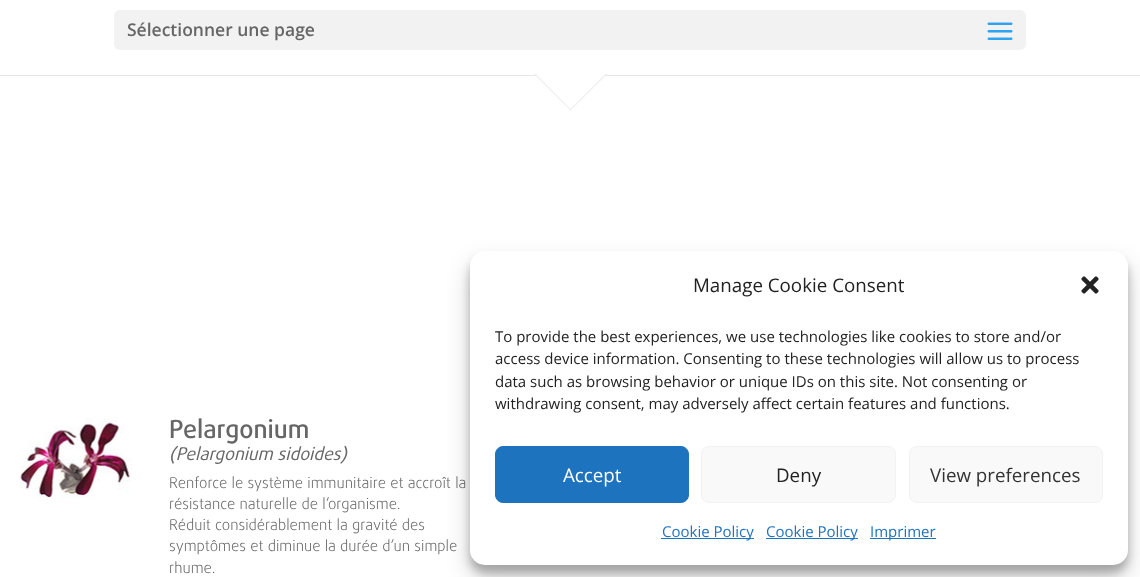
async function draw(canvas) {
  canvas.width = 1140
  canvas.height = 577
  const ctx = canvas.getContext('2d')
  ctx.miterLimit = 4
  ctx.fontKerning = 'normal'
  async function loadImage(src) {
    const img = new Image()
    img.src = src
    await img.decode()
    return img
  }

  ctx.fillStyle = '#fff'
  ctx.fillRect(0, 0, 1140, 577)
  ctx.fillStyle = '#e6e6e6'
  ctx.fillRect(0, 75, 1140, 1)
  ctx.fillStyle = '#fff'
  ctx.beginPath()
  ctx.moveTo(571, 38)
  ctx.lineTo(607, 74)
  ctx.lineTo(571, 111)
  ctx.lineTo(534, 74)
  ctx.closePath()
  ctx.fill()
  ctx.fillStyle = '#f2f2f2'
  ctx.beginPath()
  ctx.roundRect(114, 10, 912, 40, 6)
  ctx.fill()
  ctx.font = '600 17.5px Open Sans'
  ctx.fillStyle = '#666'
  ctx.fillText('Sélectionner une page', 127, 36)
  ctx.drawImage(await loadImage('image0.png'), 987, 22, 26, 18)
  ctx.fillStyle = '#4a4a4a17'
  ctx.beginPath()
  ctx.moveTo(607, 74.5)
  ctx.lineTo(570.5, 110.5)
  ctx.lineTo(570.5, 109)
  ctx.lineTo(606, 73.5)
  ctx.closePath()
  ctx.fill()
  ctx.beginPath()
  ctx.moveTo(570.5, 110.5)
  ctx.lineTo(534.5, 74.5)
  ctx.lineTo(535.5, 73.5)
  ctx.lineTo(570.5, 109)
  ctx.closePath()
  ctx.fill()
  ctx.drawImage(await loadImage('image1.png'), 20, 417, 112, 81)
  ctx.font = '500 25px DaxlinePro'
  ctx.fillStyle = '#666'
  ctx.fillText('Pelargonium', 169, 438)
  ctx.font = 'italic 17.5px DaxlinePro'
  ctx.fillText('(Pelargonium sidoides)', 169, 460)
  ctx.font = '300 15px DaxlinePro'
  ctx.fillText('Renforce le système immunitaire et accroît la', 169, 488)
  ctx.fillText('résistance naturelle de l’organisme.', 169, 509)
  ctx.fillText('Réduit considérablement la gravité des', 169, 530)
  ctx.fillText('symptômes et diminue la durée d’un simple', 169, 551)
  ctx.fillText('rhume.', 169, 573)
  ctx.fillStyle = '#0000003b'
  ctx.filter = 'blur(4px)'
  ctx.beginPath()
  ctx.roundRect(470, 259, 658, 314, 15)
  ctx.fill()
  ctx.filter = 'none'
  ctx.fillStyle = '#00000030'
  ctx.filter = 'blur(12.5px)'
  ctx.beginPath()
  ctx.roundRect(470, 264, 658, 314, 15)
  ctx.fill()
  ctx.filter = 'none'
  ctx.fillStyle = '#fff'
  ctx.beginPath()
  ctx.roundRect(470, 251, 658, 314, 15)
  ctx.fill()
  ctx.font = '18.75px Open Sans'
  ctx.fillStyle = '#222'
  ctx.fillText('Manage Cookie Consent', 693, 292)
  ctx.drawImage(await loadImage('image2.png'), 1081, 276, 18, 18)
  ctx.font = '15px Open Sans'
  ctx.fillText('To provide the best experiences, we use technologies like cookies to store and/or', 495, 342)
  ctx.fillText('access device information. Consenting to these technologies will allow us to process', 495, 364)
  ctx.fillText('data such as browsing behavior or unique IDs on this site. Not consenting or', 495, 387)
  ctx.fillText('withdrawing consent, may adversely affect certain features and functions.', 495, 409)
  ctx.fillStyle = '#1e73be'
  ctx.beginPath()
  ctx.roundRect(495.5, 446.5, 193, 56, 7.5)
  ctx.fill()
  ctx.strokeStyle = '#1e73be'
  ctx.stroke()
  ctx.font = '18.75px Open Sans'
  ctx.fillStyle = '#fff'
  ctx.fillText('Accept', 563, 482)
  ctx.fillStyle = '#f9f9f9'
  ctx.beginPath()
  ctx.roundRect(701.5, 446.5, 194, 56, 7.5)
  ctx.fill()
  ctx.strokeStyle = '#f2f2f2'
  ctx.stroke()
  ctx.fillStyle = '#222'
  ctx.fillText('Deny', 776, 482)
  ctx.fillStyle = '#f9f9f9'
  ctx.beginPath()
  ctx.roundRect(909.5, 446.5, 193, 56, 7.5)
  ctx.fill()
  ctx.stroke()
  ctx.fillStyle = '#333'
  ctx.fillText('View preferences', 930, 482)
  ctx.fillStyle = '#1e73be'
  ctx.fillRect(661, 538, 93, 1)
  ctx.font = '15px Open Sans'
  ctx.fillText('Cookie Policy', 662, 537)
  ctx.fillRect(766, 538, 92, 1)
  ctx.fillText('Cookie Policy', 766, 537)
  ctx.fillRect(870, 538, 66, 1)
  ctx.fillText('Imprimer', 870, 537)
}

draw(document.querySelector('canvas'))
